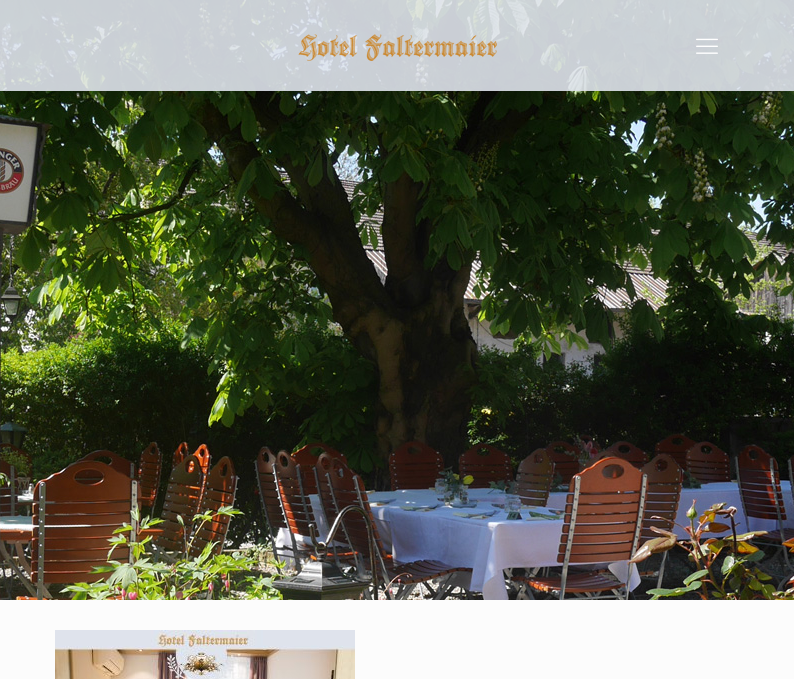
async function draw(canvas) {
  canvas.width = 794
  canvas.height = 679
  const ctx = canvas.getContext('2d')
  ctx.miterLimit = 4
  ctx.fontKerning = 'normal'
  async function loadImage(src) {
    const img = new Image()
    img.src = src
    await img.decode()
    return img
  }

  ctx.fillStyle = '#fcfcfc'
  ctx.fillRect(0, 0, 794, 679)
  ctx.drawImage(await loadImage('image0.png'), 0, 0, 794, 600)
  ctx.fillStyle = '#dfe3ece6'
  ctx.fillRect(0, 0, 794, 91)
  ctx.drawImage(await loadImage('image1.png'), 298, 34, 199, 27)
  ctx.drawImage(await loadImage('image2.png'), 696, 38, 22, 16)
  ctx.drawImage(await loadImage('image3.png'), 55, 630, 300, 49)
}

draw(document.querySelector('canvas'))
